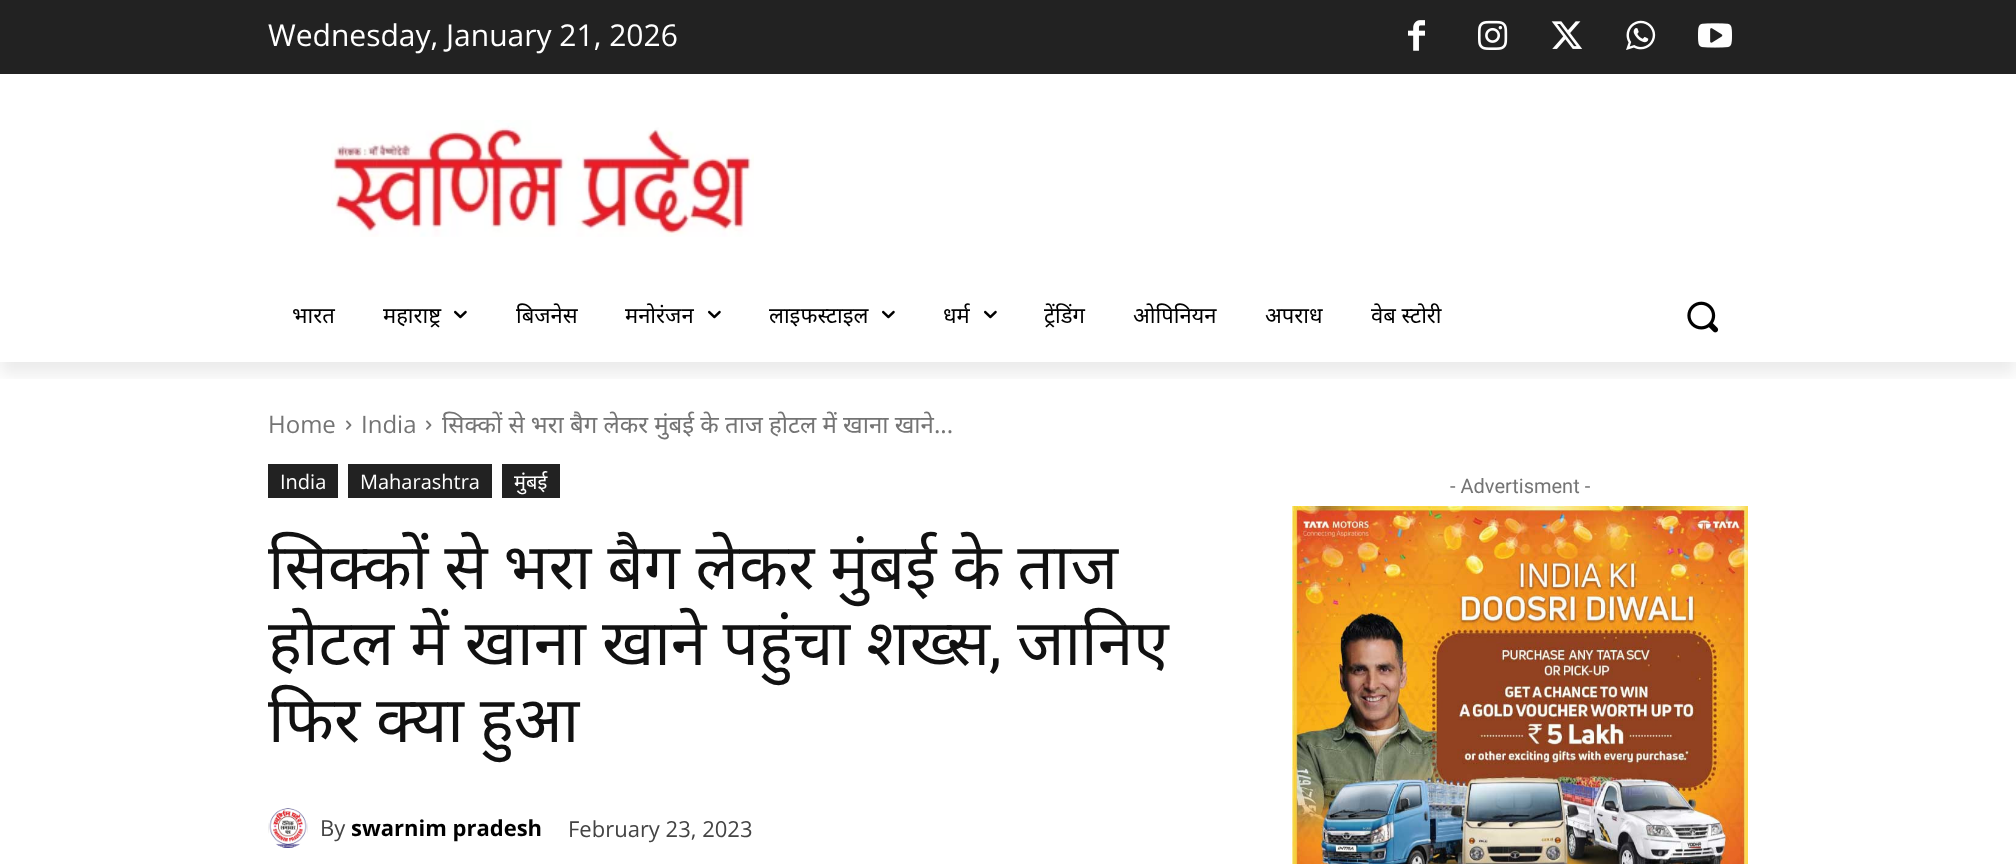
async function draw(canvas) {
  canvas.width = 2016
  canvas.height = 864
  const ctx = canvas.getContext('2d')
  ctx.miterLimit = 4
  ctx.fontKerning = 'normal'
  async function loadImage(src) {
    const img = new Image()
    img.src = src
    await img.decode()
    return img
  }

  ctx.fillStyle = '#fff'
  ctx.fillRect(0, 0, 2016, 864)
  ctx.fillStyle = '#222'
  ctx.fillRect(0, 0, 2016, 74)
  ctx.drawImage(await loadImage('image0.png'), 1408, 20, 17, 31)
  ctx.drawImage(await loadImage('image1.png'), 1478, 20, 30, 30)
  ctx.drawImage(await loadImage('image2.png'), 1551, 21, 32, 28)
  ctx.drawImage(await loadImage('image3.png'), 1626, 20, 30, 30)
  ctx.drawImage(await loadImage('image4.png'), 1698, 23, 34, 25)
  ctx.drawImage(await loadImage('image5.png'), 331, 120, 423, 117)
  ctx.save()
  ctx.beginPath()
  ctx.rect(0, 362, 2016, 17)
  ctx.clip()
  ctx.fillStyle = '#00000014'
  ctx.filter = 'blur(8px)'
  ctx.beginPath()
  ctx.rect(0, 12, 2016, 362)
  ctx.fill()
  ctx.filter = 'none'
  ctx.restore()
  ctx.font = '30px Open Sans'
  ctx.fillStyle = '#fff'
  ctx.fillText('Wednesday, January 21, 2026', 268, 46)
  ctx.font = '22px Noto Sans'
  ctx.fillStyle = '#000'
  ctx.fillText('भारत', 292, 323)
  ctx.fillText('महाराष्ट्र', 383, 323)
  ctx.drawImage(await loadImage('image6.png'), 454, 310, 13, 9)
  ctx.fillText('बिजनेस', 516, 323)
  ctx.fillText('मनोरंजन', 625, 323)
  ctx.drawImage(await loadImage('image6.png'), 708, 310, 13, 9)
  ctx.fillText('लाइफस्‍टाइल', 769, 323)
  ctx.drawImage(await loadImage('image6.png'), 882, 310, 13, 9)
  ctx.fillText('धर्म', 943, 323)
  ctx.drawImage(await loadImage('image6.png'), 984, 310, 13, 9)
  ctx.fillText('ट्रेंडिंग', 1044, 323)
  ctx.fillText('ओपिनियन', 1133, 323)
  ctx.fillText('अपराध', 1265, 323)
  ctx.fillText('वेब स्टोरी', 1371, 323)
  ctx.drawImage(await loadImage('image7.png'), 1687, 301, 32, 32)
  ctx.font = '24px Open Sans'
  ctx.fillStyle = '#747474'
  ctx.fillText('Home', 268, 433)
  ctx.drawImage(await loadImage('image8.png'), 346, 420, 6, 10)
  ctx.fillText('India', 361, 433)
  ctx.drawImage(await loadImage('image8.png'), 426, 420, 6, 10)
  ctx.font = '24px Noto Sans'
  ctx.fillText('सिक्कों से भरा बैग लेकर मुंबई के ताज होटल में खाना खाने...', 442, 433)
  ctx.fillStyle = '#222'
  ctx.fillRect(268, 464, 70, 34)
  ctx.font = '20px Open Sans'
  ctx.fillStyle = '#fff'
  ctx.fillText('India', 280, 489)
  ctx.fillStyle = '#222'
  ctx.fillRect(348, 464, 144, 34)
  ctx.fillStyle = '#fff'
  ctx.fillText('Maharashtra', 360, 489)
  ctx.fillStyle = '#222'
  ctx.fillRect(502, 464, 58, 34)
  ctx.font = '20px Noto Sans'
  ctx.fillStyle = '#fff'
  ctx.fillText('मुंबई', 514, 489)
  ctx.wordSpacing = '-0.75px'
  ctx.font = '64px Noto Sans'
  ctx.fillStyle = '#111'
  ctx.fillText('सिक्कों से भरा बैग लेकर मुंबई के ताज', 268, 589)
  ctx.wordSpacing = '-0.5px'
  ctx.fillText('होटल में खाना खाने पहुंचा शख्स', 268, 665)
  ctx.wordSpacing = '0px'
  ctx.font = '64px Roboto'
  ctx.fillText(',', 989, 665)
  ctx.font = '64px Noto Sans'
  ctx.fillText('जानिए', 1017, 665)
  ctx.wordSpacing = '-0.75px'
  ctx.fillText('फिर क्या हुआ', 268, 742)
  ctx.drawImage(await loadImage('image9.png'), 268, 808, 40, 40)
  ctx.wordSpacing = '0px'
  ctx.font = '22px Open Sans'
  ctx.fillStyle = '#444'
  ctx.fillText('By', 320, 836)
  ctx.font = 'bold 22px Open Sans'
  ctx.fillStyle = '#000'
  ctx.fillText('swarnim pradesh', 351, 836)
  ctx.font = '22px Open Sans'
  ctx.fillStyle = '#444'
  ctx.fillText('February 23, 2023', 568, 837)
  ctx.font = '20px Roboto'
  ctx.fillStyle = '#747474'
  ctx.fillText('- Advertisment -', 1450, 493)
  ctx.drawImage(await loadImage('image10.png'), 1292, 506, 456, 358)
}

draw(document.querySelector('canvas'))
